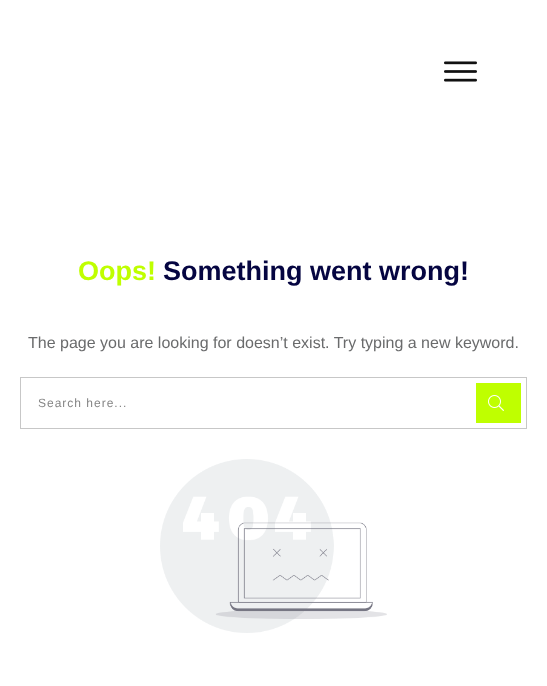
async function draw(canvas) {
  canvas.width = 547
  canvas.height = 686
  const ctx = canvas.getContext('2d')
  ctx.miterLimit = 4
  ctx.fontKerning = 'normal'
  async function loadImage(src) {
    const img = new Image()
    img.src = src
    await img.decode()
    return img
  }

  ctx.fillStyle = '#fff'
  ctx.fillRect(0, 0, 547, 686)
  ctx.drawImage(await loadImage('image0.png'), 444, 61, 33, 21)
  ctx.font = 'bold 27px Liberation Sans'
  ctx.fillStyle = '#bfff00'
  ctx.fillText('Oops!', 78, 280)
  ctx.fillStyle = '#050541'
  ctx.fillText('Something went wrong!', 163, 280)
  ctx.font = '16px Liberation Sans'
  ctx.fillStyle = '#6a6b6c'
  ctx.fillText('The page you are looking for doesn’t exist. Try typing a new keyword.', 28, 348)
  ctx.strokeStyle = '#c7c7c7'
  ctx.strokeRect(20.5, 377.5, 506, 51)
  ctx.letterSpacing = '1px'
  ctx.font = '12px Liberation Sans'
  ctx.fillStyle = '#858585'
  ctx.fillText('Search here...', 38, 407)
  ctx.fillStyle = '#bfff00'
  ctx.fillRect(476, 383, 45, 40)
  ctx.drawImage(await loadImage('image1.png'), 488, 395, 16, 16)
  ctx.drawImage(await loadImage('image2.png'), 160, 459, 227, 174)
}

draw(document.querySelector('canvas'))
